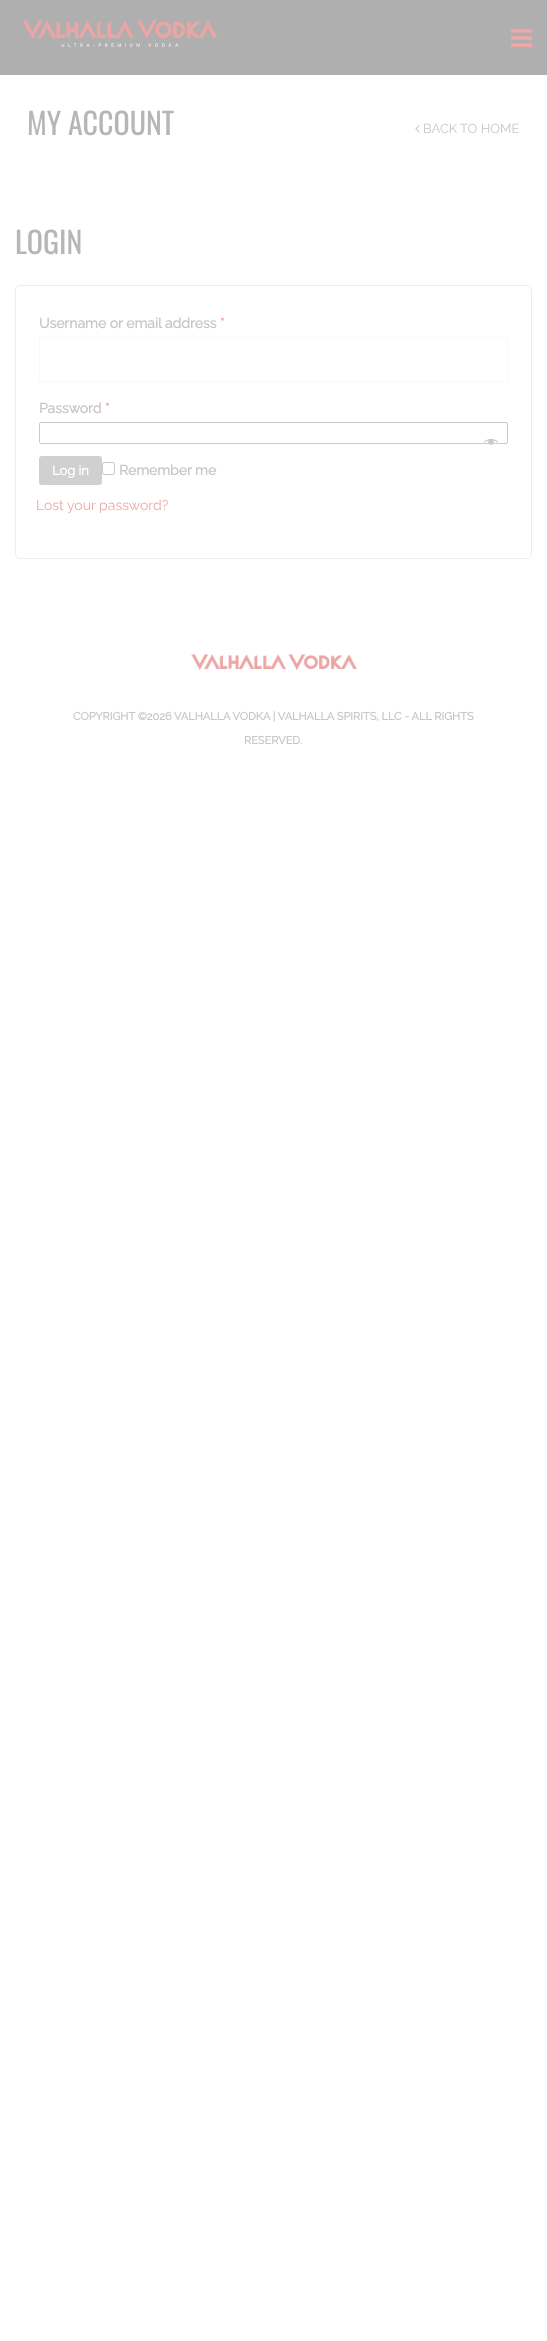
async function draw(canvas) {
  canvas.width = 547
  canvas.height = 2341
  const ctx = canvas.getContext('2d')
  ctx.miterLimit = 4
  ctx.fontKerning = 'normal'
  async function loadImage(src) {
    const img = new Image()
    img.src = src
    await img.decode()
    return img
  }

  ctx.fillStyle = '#fff'
  ctx.fillRect(0, 0, 547, 2341)
  ctx.fillStyle = '#afafaf'
  ctx.fillRect(0, 0, 547, 75)
  ctx.drawImage(await loadImage('image0.png'), 22, 20, 196, 27)
  ctx.drawImage(await loadImage('image1.png'), 511, 29, 22, 18)
  ctx.font = '30px Oswald'
  ctx.fillStyle = '#b6b6b6'
  ctx.fillText('MY ACCOUNT', 27, 135)
  ctx.drawImage(await loadImage('image2.png'), 415, 125, 5, 8)
  ctx.font = '100 13px Raleway'
  ctx.fillStyle = '#c6c6c6'
  ctx.fillText('BACK TO HOME', 423, 133)
  ctx.font = '30px Oswald'
  ctx.fillStyle = '#b6b6b6'
  ctx.fillText('LOGIN', 15, 254)
  ctx.beginPath()
  ctx.roundRect(15.5, 285.5, 516, 273, 4.5)
  ctx.strokeStyle = '#eeecee'
  ctx.stroke()
  ctx.font = 'bold 14px Raleway'
  ctx.fillStyle = '#c6c6c6'
  ctx.fillText('Username or email address', 39, 328)
  ctx.fillStyle = '#ff9e9e'
  ctx.fillText('*', 220, 328)
  ctx.strokeStyle = '#f9f9f9'
  ctx.strokeRect(39.5, 337.5, 468, 44)
  ctx.fillStyle = '#c6c6c6'
  ctx.fillText('Password', 39, 413)
  ctx.fillStyle = '#ff9e9e'
  ctx.fillText('*', 105, 413)
  ctx.beginPath()
  ctx.roundRect(39.5, 422.5, 468, 21, 1.5)
  ctx.strokeStyle = '#cbcbcb'
  ctx.stroke()
  ctx.drawImage(await loadImage('image3.png'), 484, 438, 14, 7)
  ctx.fillStyle = '#d0d0d0'
  ctx.beginPath()
  ctx.roundRect(39, 456, 63, 29, 3)
  ctx.fill()
  ctx.font = 'bold 13px Raleway'
  ctx.fillStyle = '#fff'
  ctx.fillText('Log in', 52, 475)
  ctx.beginPath()
  ctx.roundRect(102.5, 462.5, 12, 12, 1.5)
  ctx.stroke()
  ctx.font = 'bold 14px Raleway'
  ctx.fillStyle = '#c6c6c6'
  ctx.fillText('Remember me', 119, 475)
  ctx.font = '100 14px Raleway'
  ctx.fillStyle = '#f0a7a7'
  ctx.fillText('Lost your password?', 36, 510)
  ctx.drawImage(await loadImage('image4.png'), 191, 654, 167, 16)
  ctx.font = 'bold 11px Raleway'
  ctx.fillStyle = '#c6c6c6'
  ctx.fillText('COPYRIGHT ©2026', 73, 720)
  ctx.fillText('VALHALLA VODKA | VALHALLA SPIRITS, LLC - ALL RIGHTS', 174, 720)
  ctx.fillText('RESERVED.', 244, 744)
}

draw(document.querySelector('canvas'))
